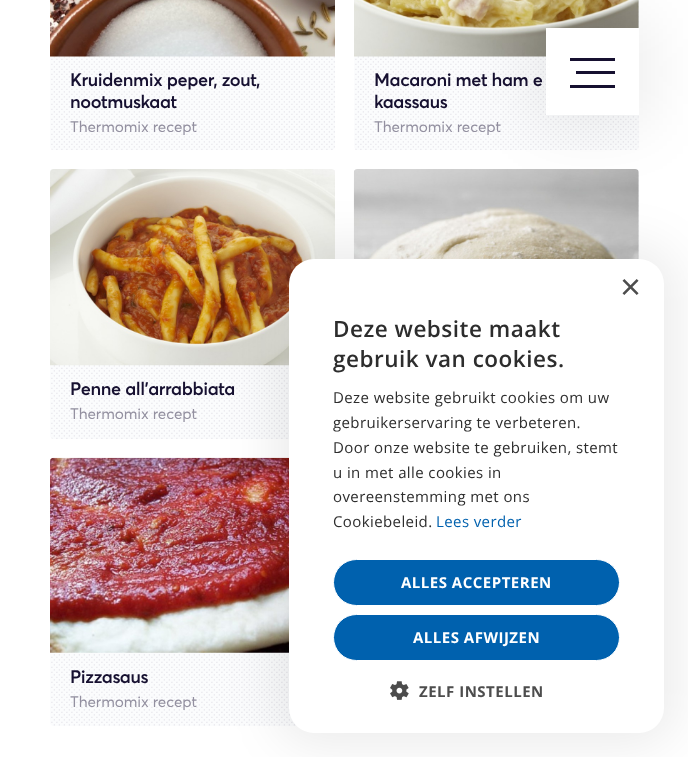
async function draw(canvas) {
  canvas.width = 688
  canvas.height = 757
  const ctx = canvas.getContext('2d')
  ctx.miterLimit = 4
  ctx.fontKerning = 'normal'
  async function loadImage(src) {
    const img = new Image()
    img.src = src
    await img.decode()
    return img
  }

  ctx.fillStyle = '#fff'
  ctx.fillRect(0, 0, 688, 757)
  ctx.fillStyle = '#fbfcfd'
  ctx.beginPath()
  ctx.roundRect(50, -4, 285, 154, 4)
  ctx.fill()
  ctx.drawImage(await loadImage('image0.png'), 51, 56, 284, 94)
  ctx.drawImage(await loadImage('image1.png'), 50, 0, 285, 57)
  ctx.letterSpacing = '-0.4px'
  ctx.font = '600 18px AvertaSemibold'
  ctx.fillStyle = '#161030'
  ctx.fillText('Kruidenmix peper, zout,', 70, 86)
  ctx.fillText('nootmuskaat', 70, 108)
  ctx.letterSpacing = '-0.1px'
  ctx.font = '15.25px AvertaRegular'
  ctx.fillStyle = '#9390a0'
  ctx.fillText('Thermomix recept', 70, 132)
  ctx.fillStyle = '#fbfcfd'
  ctx.beginPath()
  ctx.roundRect(354, -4, 285, 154, 4)
  ctx.fill()
  ctx.drawImage(await loadImage('image2.png'), 355, 1, 284, 149)
  ctx.drawImage(await loadImage('image3.png'), 354, 0, 285, 57)
  ctx.letterSpacing = '-0.4px'
  ctx.font = '600 18px AvertaSemibold'
  ctx.fillStyle = '#161030'
  ctx.fillText('Macaroni met ham e', 374, 86)
  ctx.fillText('kaassaus', 374, 108)
  ctx.letterSpacing = '-0.1px'
  ctx.font = '15.25px AvertaRegular'
  ctx.fillStyle = '#9390a0'
  ctx.fillText('Thermomix recept', 374, 132)
  ctx.fillStyle = '#fbfcfd'
  ctx.beginPath()
  ctx.roundRect(50, 169, 285, 270, 4)
  ctx.fill()
  ctx.drawImage(await loadImage('image4.png'), 51, 170, 284, 269)
  ctx.drawImage(await loadImage('image5.png'), 50, 169, 285, 197)
  ctx.letterSpacing = '-0.4px'
  ctx.font = '600 18px AvertaSemibold'
  ctx.fillStyle = '#161030'
  ctx.fillText('Penne all\'arrabbiata', 70, 395)
  ctx.letterSpacing = '-0.1px'
  ctx.font = '15.25px AvertaRegular'
  ctx.fillStyle = '#9390a0'
  ctx.fillText('Thermomix recept', 70, 419)
  ctx.fillStyle = '#fbfcfd'
  ctx.beginPath()
  ctx.roundRect(354, 169, 285, 270, 4)
  ctx.fill()
  ctx.drawImage(await loadImage('image6.png'), 637, 170, 2, 87)
  ctx.drawImage(await loadImage('image7.png'), 353, 169, 286, 90)
  ctx.beginPath()
  ctx.roundRect(50, 458, 285, 268, 4)
  ctx.fill()
  ctx.drawImage(await loadImage('image8.png'), 51, 652, 244, 74)
  ctx.drawImage(await loadImage('image9.png'), 50, 457, 239, 196)
  ctx.letterSpacing = '-0.4px'
  ctx.font = '600 18px AvertaSemibold'
  ctx.fillStyle = '#161030'
  ctx.fillText('Pizzasaus', 70, 683)
  ctx.letterSpacing = '-0.1px'
  ctx.font = '15.25px AvertaRegular'
  ctx.fillStyle = '#9390a0'
  ctx.fillText('Thermomix recept', 70, 707)
  ctx.fillStyle = '#00000014'
  ctx.filter = 'blur(31px)'
  ctx.beginPath()
  ctx.rect(536, 18, 113, 107)
  ctx.fill()
  ctx.filter = 'none'
  ctx.fillStyle = '#fff'
  ctx.fillRect(546, 28, 93, 87)
  ctx.fillStyle = '#161030'
  ctx.fillRect(570, 58, 45, 3)
  ctx.fillRect(576, 71, 39, 3)
  ctx.fillRect(570, 85, 45, 3)
  ctx.fillStyle = '#00000014'
  ctx.filter = 'blur(25px)'
  ctx.beginPath()
  ctx.roundRect(276, 246, 400, 499, 38)
  ctx.fill()
  ctx.filter = 'none'
  ctx.fillStyle = '#fff'
  ctx.beginPath()
  ctx.roundRect(289, 259, 375, 474, 25)
  ctx.fill()
  ctx.letterSpacing = '0px'
  ctx.font = '36px Liberation Sans'
  ctx.fillStyle = '#4d4d4d'
  ctx.fillText('×', 620, 299)
  ctx.letterSpacing = '0.5px'
  ctx.font = '600 22.5px Open Sans'
  ctx.fillStyle = '#2d2d2d'
  ctx.fillText('Deze website maakt', 333, 337)
  ctx.fillText('gebruik van cookies.', 333, 367)
  ctx.letterSpacing = '0.4px'
  ctx.font = '15px Open Sans'
  ctx.fillText('Deze website gebruikt cookies om uw', 333, 403)
  ctx.fillText('gebruikerservaring te verbeteren.', 333, 428)
  ctx.fillText('Door onze website te gebruiken, stemt', 333, 453)
  ctx.fillText('u in met alle cookies in', 333, 478)
  ctx.fillText('overeenstemming met ons', 333, 502)
  ctx.fillText('Cookiebeleid.', 333, 527)
  ctx.fillStyle = '#0061ae'
  ctx.fillText('Lees verder', 436, 527)
  ctx.beginPath()
  ctx.roundRect(333.5, 559.5, 286, 46, 23)
  ctx.fill()
  ctx.strokeStyle = '#fff'
  ctx.stroke()
  ctx.letterSpacing = '0.5px'
  ctx.font = 'bold 15px Open Sans'
  ctx.fillStyle = '#fff'
  ctx.fillText('ALLES ACCEPTEREN', 401, 588)
  ctx.fillStyle = '#0061ae'
  ctx.beginPath()
  ctx.roundRect(333.5, 614.5, 286, 46, 23)
  ctx.fill()
  ctx.stroke()
  ctx.fillStyle = '#fff'
  ctx.fillText('ALLES AFWIJZEN', 413, 643)
  ctx.drawImage(await loadImage('image10.png'), 390, 681, 19, 19)
  ctx.fillStyle = '#4d4d4d'
  ctx.fillText('ZELF INSTELLEN', 419, 697)
}

draw(document.querySelector('canvas'))
